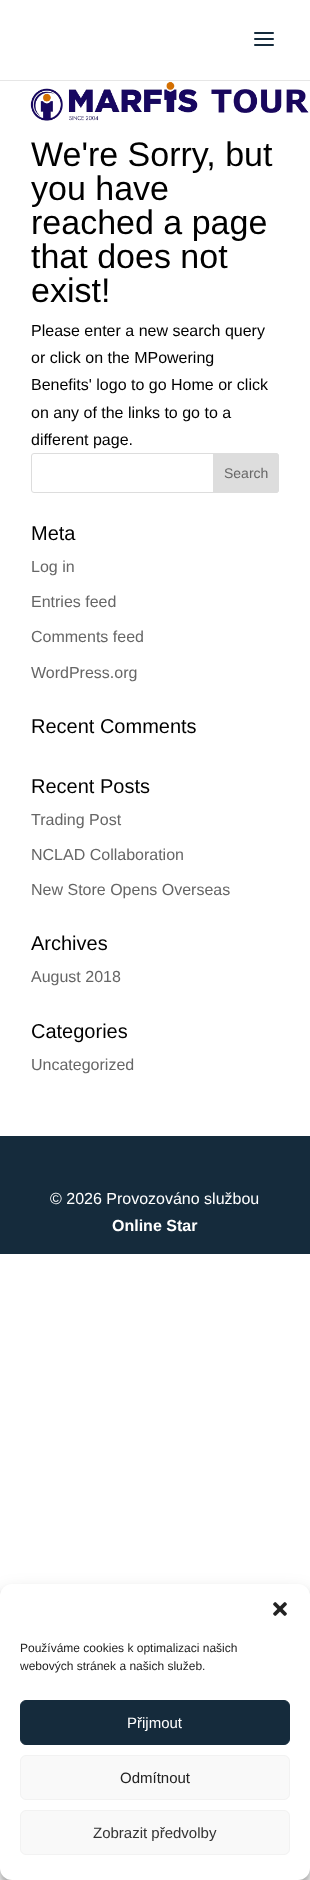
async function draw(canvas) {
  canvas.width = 310
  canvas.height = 1880
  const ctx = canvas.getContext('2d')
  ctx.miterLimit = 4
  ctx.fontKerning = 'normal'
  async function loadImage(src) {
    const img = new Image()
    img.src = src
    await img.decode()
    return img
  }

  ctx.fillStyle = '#fff'
  ctx.fillRect(0, 0, 310, 1880)
  ctx.fillStyle = '#e6e6e6'
  ctx.fillRect(0, 80, 310, 1)
  ctx.drawImage(await loadImage('image0.png'), 254, 32, 20, 14)
  ctx.drawImage(await loadImage('image1.png'), 30, 81, 279, 40)
  ctx.font = '34px Liberation Sans'
  ctx.fillStyle = '#000'
  ctx.fillText('We\'re Sorry, but', 31, 166)
  ctx.fillText('you have', 31, 200)
  ctx.fillText('reached a page', 31, 234)
  ctx.fillText('that does not', 31, 268)
  ctx.fillText('exist!', 31, 302)
  ctx.font = '16px Liberation Sans'
  ctx.fillText('Please enter a new search query', 31, 336)
  ctx.fillText('or click on the MPowering', 31, 363)
  ctx.fillText('Benefits\' logo to go Home or click', 31, 390)
  ctx.fillText('on any of the links to go to a', 31, 418)
  ctx.fillText('different page.', 31, 445)
  ctx.beginPath()
  ctx.roundRect(31.5, 453.5, 247, 39, 2.5)
  ctx.strokeStyle = '#ddd'
  ctx.stroke()
  ctx.fillStyle = '#ddd'
  ctx.beginPath()
  ctx.roundRect(213.5, 453.5, 65, 39, [0, 2.5, 2.5, 0])
  ctx.fill()
  ctx.stroke()
  ctx.font = '14px Liberation Sans'
  ctx.fillStyle = '#666'
  ctx.fillText('Search', 224, 478)
  ctx.font = '20px Liberation Sans'
  ctx.fillStyle = '#000'
  ctx.fillText('Meta', 31, 540)
  ctx.font = '16px Liberation Sans'
  ctx.fillStyle = '#666'
  ctx.fillText('Log in', 31, 572)
  ctx.fillText('Entries feed', 31, 607)
  ctx.fillText('Comments feed', 31, 642)
  ctx.fillText('WordPress.org', 31, 678)
  ctx.font = '20px Liberation Sans'
  ctx.fillStyle = '#000'
  ctx.fillText('Recent Comments', 31, 733)
  ctx.fillText('Recent Posts', 31, 793)
  ctx.font = '16px Liberation Sans'
  ctx.fillStyle = '#666'
  ctx.fillText('Trading Post', 31, 825)
  ctx.fillText('NCLAD Collaboration', 31, 860)
  ctx.fillText('New Store Opens Overseas', 31, 895)
  ctx.font = '20px Liberation Sans'
  ctx.fillStyle = '#000'
  ctx.fillText('Archives', 31, 950)
  ctx.font = '16px Liberation Sans'
  ctx.fillStyle = '#666'
  ctx.fillText('August 2018', 31, 982)
  ctx.font = '20px Liberation Sans'
  ctx.fillStyle = '#000'
  ctx.fillText('Categories', 31, 1038)
  ctx.font = '16px Liberation Sans'
  ctx.fillStyle = '#666'
  ctx.fillText('Uncategorized', 31, 1070)
  ctx.fillStyle = '#152b3c'
  ctx.fillRect(0, 1136, 310, 118)
  ctx.fillStyle = '#fff'
  ctx.fillText('© 2026 Provozováno službou', 50, 1204)
  ctx.font = 'bold 16px Liberation Sans'
  ctx.fillText('Online Star', 112, 1231)
  ctx.fillStyle = '#0000003b'
  ctx.filter = 'blur(3px)'
  ctx.beginPath()
  ctx.roundRect(0, 1590, 310, 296, 12)
  ctx.fill()
  ctx.filter = 'none'
  ctx.fillStyle = '#00000030'
  ctx.filter = 'blur(10px)'
  ctx.beginPath()
  ctx.roundRect(0, 1594, 310, 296, 12)
  ctx.fill()
  ctx.filter = 'none'
  ctx.fillStyle = '#fff'
  ctx.beginPath()
  ctx.roundRect(0, 1584, 310, 296, 12)
  ctx.fill()
  ctx.drawImage(await loadImage('image2.png'), 273, 1602, 14, 14)
  ctx.font = '12px Liberation Sans'
  ctx.fillStyle = '#222'
  ctx.fillText('Používáme cookies k optimalizaci našich', 20, 1652)
  ctx.fillText('webových stránek a našich služeb.', 20, 1670)
  ctx.fillStyle = '#152b3c'
  ctx.beginPath()
  ctx.roundRect(20.5, 1700.5, 269, 44, 5.5)
  ctx.fill()
  ctx.strokeStyle = '#152b3c'
  ctx.stroke()
  ctx.font = '15px Liberation Sans'
  ctx.fillStyle = '#fff'
  ctx.fillText('Přijmout', 127, 1728)
  ctx.fillStyle = '#f9f9f9'
  ctx.beginPath()
  ctx.roundRect(20.5, 1755.5, 269, 44, 5.5)
  ctx.fill()
  ctx.strokeStyle = '#f2f2f2'
  ctx.stroke()
  ctx.fillStyle = '#222'
  ctx.fillText('Odmítnout', 120, 1783)
  ctx.fillStyle = '#f9f9f9'
  ctx.beginPath()
  ctx.roundRect(20.5, 1810.5, 269, 44, 5.5)
  ctx.fill()
  ctx.stroke()
  ctx.fillStyle = '#333'
  ctx.fillText('Zobrazit předvolby', 93, 1838)
}

draw(document.querySelector('canvas'))
